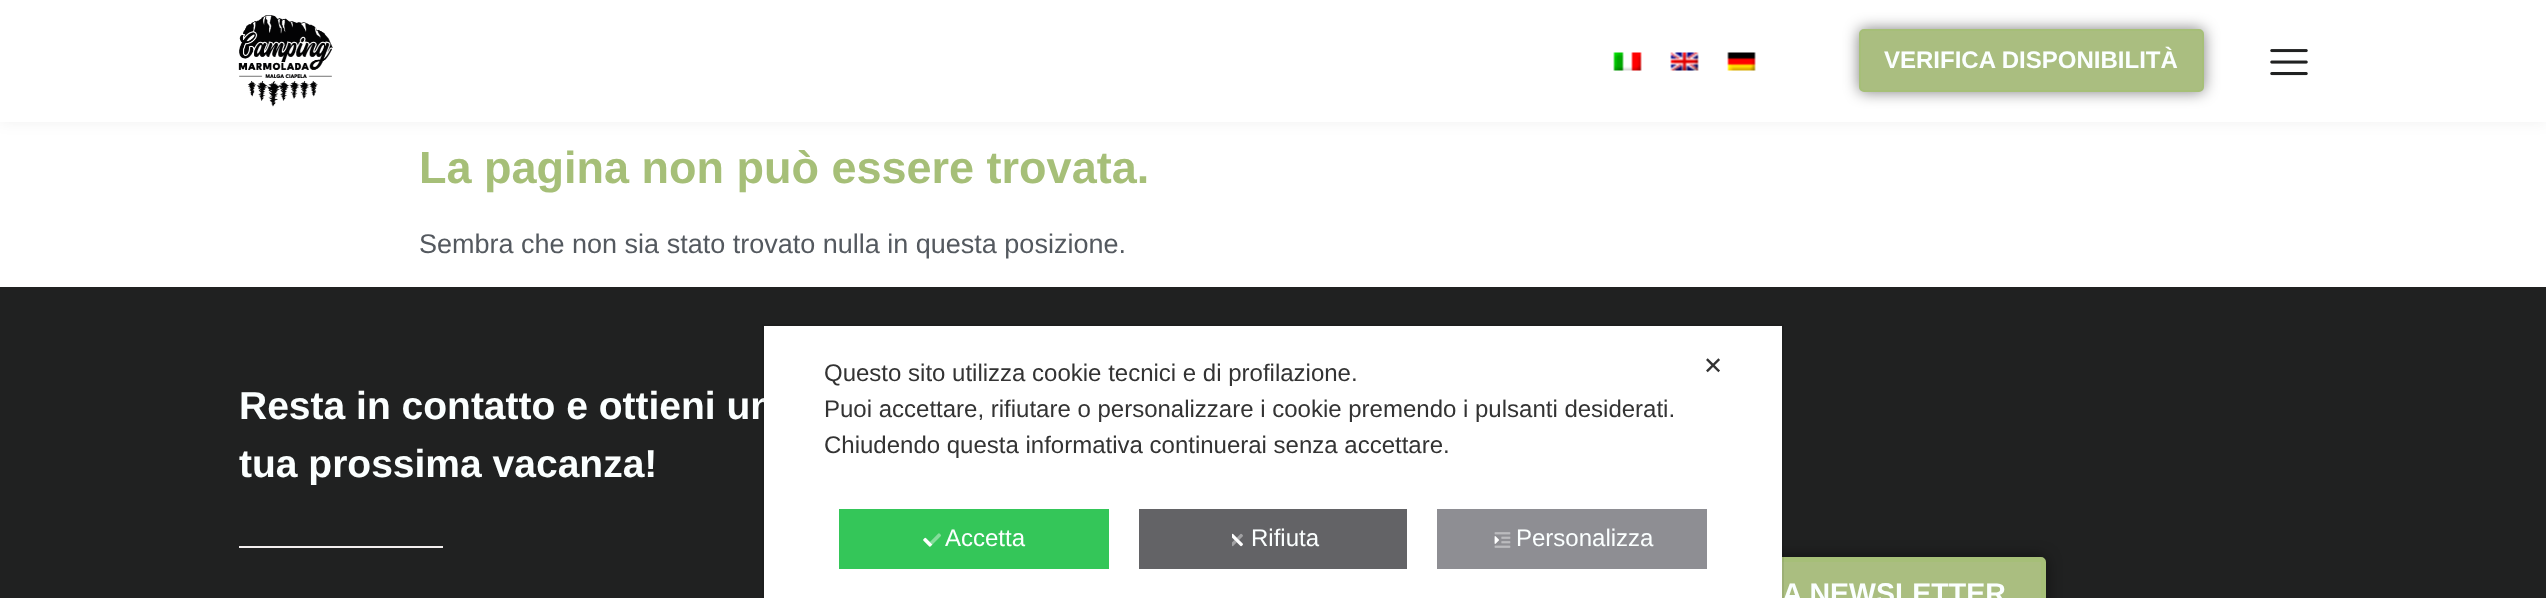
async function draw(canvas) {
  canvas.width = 2546
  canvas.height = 598
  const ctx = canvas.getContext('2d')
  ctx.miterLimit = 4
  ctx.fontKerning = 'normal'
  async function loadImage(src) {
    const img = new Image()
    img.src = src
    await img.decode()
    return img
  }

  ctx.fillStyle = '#fff'
  ctx.fillRect(0, 0, 2546, 598)
  ctx.fillStyle = '#0000000f'
  ctx.filter = 'blur(7.5px)'
  ctx.beginPath()
  ctx.rect(0, 0, 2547, 122)
  ctx.fill()
  ctx.filter = 'none'
  ctx.fillStyle = '#fff'
  ctx.fillRect(0, 0, 2546, 122)
  ctx.drawImage(await loadImage('image0.png'), 238, 15, 95, 92)
  ctx.drawImage(await loadImage('image1.png'), 1613, 52, 29, 19)
  ctx.drawImage(await loadImage('image2.png'), 1670, 52, 29, 19)
  ctx.drawImage(await loadImage('image3.png'), 1727, 52, 29, 19)
  ctx.fillStyle = '#00000080'
  ctx.filter = 'blur(7.5px)'
  ctx.beginPath()
  ctx.roundRect(1859, 29, 345, 63, 5)
  ctx.fill()
  ctx.filter = 'none'
  ctx.fillStyle = '#aabe80'
  ctx.beginPath()
  ctx.roundRect(1860, 30, 343, 61, 4)
  ctx.fill()
  ctx.strokeStyle = '#a6bf78'
  ctx.lineWidth = 2
  ctx.stroke()
  ctx.font = 'bold 24px Liberation Sans'
  ctx.fillStyle = '#fbffff'
  ctx.fillText('VERIFICA DISPONIBILITÀ', 1884, 68)
  ctx.drawImage(await loadImage('image4.png'), 2270, 49, 38, 27)
  ctx.font = 'bold 45px Liberation Sans'
  ctx.fillStyle = '#a6bf78'
  ctx.fillText('La pagina non può essere trovata.', 419, 183)
  ctx.font = '27px Liberation Sans'
  ctx.fillStyle = '#54595f'
  ctx.fillText('Sembra che non sia stato trovato nulla in questa posizione.', 419, 253)
  ctx.fillStyle = '#202121'
  ctx.fillRect(0, 287, 2546, 311)
  ctx.font = 'bold 39px Liberation Sans'
  ctx.fillStyle = '#fbffff'
  ctx.fillText('Resta in contatto e ottieni un', 239, 419)
  ctx.fillStyle = '#00000080'
  ctx.filter = 'blur(7.5px)'
  ctx.beginPath()
  ctx.roundRect(1551, 557, 495, 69, 5)
  ctx.fill()
  ctx.filter = 'none'
  ctx.fillStyle = '#aabe80'
  ctx.beginPath()
  ctx.roundRect(1553.5, 559.5, 490, 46, 2.5)
  ctx.fill()
  ctx.lineWidth = 5
  ctx.stroke()
  ctx.strokeStyle = '#00000014'
  ctx.lineWidth = 2
  ctx.strokeRect(763, 325, 1020, 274)
  ctx.fillStyle = '#fff'
  ctx.fillRect(764, 326, 1018, 272)
  ctx.font = '24px Liberation Sans'
  ctx.fillStyle = '#333'
  ctx.fillText('Questo sito utilizza cookie tecnici e di profilazione.', 824, 381)
  ctx.fillText('Puoi accettare, rifiutare o personalizzare i cookie premendo i pulsanti desiderati.', 824, 417)
  ctx.fillText('Chiudendo questa informativa continuerai senza accettare.', 824, 453)
  ctx.fillStyle = '#34c659'
  ctx.fillRect(839, 509, 270, 60)
  ctx.drawImage(await loadImage('image5.png'), 923, 533, 18, 14)
  ctx.fillStyle = '#fbffff'
  ctx.fillText('Accetta', 945, 546)
  ctx.fillStyle = '#636366'
  ctx.fillRect(1139, 509, 268, 60)
  ctx.drawImage(await loadImage('image6.png'), 1232, 533, 11, 14)
  ctx.fillStyle = '#fbffff'
  ctx.fillText('Rifiuta', 1251, 546)
  ctx.fillStyle = '#8e8e93'
  ctx.fillRect(1437, 509, 270, 60)
  ctx.drawImage(await loadImage('image7.png'), 1494, 532, 17, 16)
  ctx.fillStyle = '#fbffff'
  ctx.fillText('Personalizza', 1516, 546)
  ctx.font = '24px DejaVu Sans'
  ctx.fillStyle = '#333'
  ctx.fillText('✕', 1703, 374)
  ctx.font = 'bold 39px Liberation Sans'
  ctx.fillStyle = '#fbffff'
  ctx.fillText('tua prossima vacanza!', 239, 477)
  ctx.fillStyle = '#f2eeee'
  ctx.fillRect(239, 546, 204, 2)
  ctx.font = 'bold 28.5px Liberation Sans'
  ctx.fillStyle = '#fbffff'
  ctx.fillText('A NEWSLETTER', 1782, 603)
}

draw(document.querySelector('canvas'))
